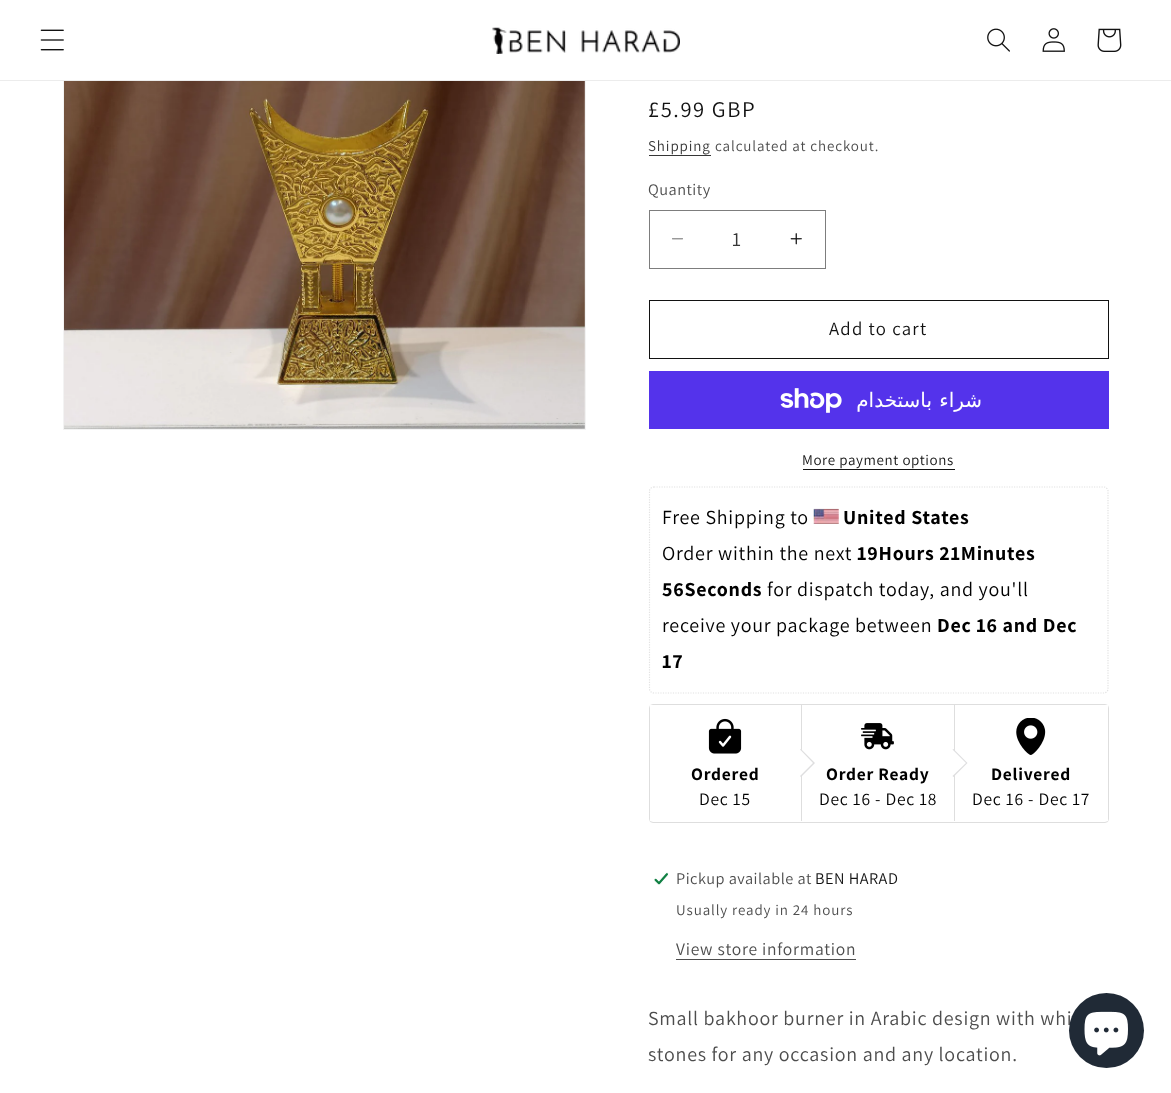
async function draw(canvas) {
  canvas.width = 1171
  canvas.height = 1093
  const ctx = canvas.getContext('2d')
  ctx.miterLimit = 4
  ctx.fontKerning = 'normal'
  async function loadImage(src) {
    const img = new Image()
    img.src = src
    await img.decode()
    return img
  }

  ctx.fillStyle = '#fff'
  ctx.fillRect(0, 0, 1171, 1093)
  ctx.strokeStyle = '#f3f3f3'
  ctx.strokeRect(63.5, 38.5, 522, 391)
  ctx.fillRect(63, 38, 523, 42)
  ctx.fillStyle = '#ececec'
  ctx.fillRect(0, 80, 1171, 1)
  ctx.drawImage(await loadImage('image0.png'), 40, 29, 24, 22)
  ctx.drawImage(await loadImage('image1.png'), 492, 27, 188, 27)
  ctx.drawImage(await loadImage('image2.png'), 987, 28, 23, 24)
  ctx.drawImage(await loadImage('image3.png'), 1042, 28, 23, 24)
  ctx.drawImage(await loadImage('image4.png'), 1097, 28, 25, 24)
  ctx.drawImage(await loadImage('image5.png'), 64, 81, 521, 348)
  ctx.letterSpacing = '1.6px'
  ctx.font = '22.5px Assistant'
  ctx.fillStyle = '#121212'
  ctx.fillText('£5.99 GBP', 648, 117)
  ctx.letterSpacing = '0.9px'
  ctx.font = '15px Assistant'
  ctx.fillStyle = '#363636'
  ctx.fillText('Shipping', 648, 151)
  ctx.fillRect(649, 155, 62, 1)
  ctx.fillStyle = '#4d4d4d'
  ctx.fillText('calculated at checkout.', 715, 151)
  ctx.letterSpacing = '0.5px'
  ctx.font = '16.25px Assistant'
  ctx.fillText('Quantity', 648, 195)
  ctx.drawImage(await loadImage('image6.png'), 672, 238, 11, 2)
  ctx.drawImage(await loadImage('image7.png'), 790, 233, 12, 12)
  ctx.strokeStyle = '#7d7d7d'
  ctx.strokeRect(649.5, 210.5, 176, 58)
  ctx.letterSpacing = '0px'
  ctx.font = '20px Assistant'
  ctx.fillStyle = '#363636'
  ctx.fillText('1', 732, 246)
  ctx.strokeStyle = '#121212'
  ctx.strokeRect(649.5, 300.5, 459, 58)
  ctx.letterSpacing = '1.25px'
  ctx.font = '18.75px Assistant'
  ctx.fillStyle = '#121212'
  ctx.fillText('Add to cart', 829, 335)
  ctx.fillStyle = '#5433eb'
  ctx.fillRect(649, 371, 460, 58)
  ctx.drawImage(await loadImage('image8.png'), 780, 388, 62, 25)
  ctx.letterSpacing = '0.75px'
  ctx.direction = 'rtl'
  ctx.font = '20px DejaVu Sans'
  ctx.fillStyle = '#fff'
  ctx.fillText('باستخدام', 932, 407)
  ctx.fillText('شراء', 982, 407)
  ctx.letterSpacing = '0.6px'
  ctx.direction = 'ltr'
  ctx.font = '15px Assistant'
  ctx.fillStyle = '#121212'
  ctx.fillText('More payment options', 802, 465)
  ctx.fillRect(803, 469, 152, 1)
  ctx.beginPath()
  ctx.moveTo(654, 487)
  ctx.lineTo(1104, 487)
  ctx.bezierCurveTo(1106, 487, 1108, 489, 1108, 491)
  ctx.lineTo(1108, 689)
  ctx.bezierCurveTo(1108, 691, 1106, 693, 1104, 693)
  ctx.lineTo(654, 693)
  ctx.bezierCurveTo(651.5, 693, 649.5, 691, 649.5, 689)
  ctx.lineTo(649.5, 491)
  ctx.bezierCurveTo(649.5, 489, 651.5, 487, 654, 487)
  ctx.closePath()
  ctx.strokeStyle = '#e2e2e2'
  ctx.lineWidth = 1.2
  ctx.setLineDash([1.25, 1.25])
  ctx.stroke()
  ctx.letterSpacing = '0.75px'
  ctx.font = '20px Assistant'
  ctx.fillStyle = '#000'
  ctx.fillText('Free Shipping to', 662, 524)
  ctx.drawImage(await loadImage('image9.png'), 813, 508, 26, 16)
  ctx.font = 'bold 20px Assistant'
  ctx.fillText('United States', 843, 524)
  ctx.font = '20px Assistant'
  ctx.fillText('Order within the next', 662, 560)
  ctx.font = 'bold 20px Assistant'
  ctx.fillText('19Hours 21Minutes', 857, 560)
  ctx.fillText('56Seconds', 662, 596)
  ctx.font = '20px Assistant'
  ctx.fillText('for dispatch today, and you\'ll', 767, 596)
  ctx.fillText('receive your package between', 662, 632)
  ctx.font = 'bold 20px Assistant'
  ctx.fillText('Dec 16 and Dec', 937, 632)
  ctx.fillText('17', 662, 668)
  ctx.beginPath()
  ctx.roundRect(649.5, 704.5, 459, 118, 3.5)
  ctx.strokeStyle = '#dedede'
  ctx.lineWidth = 1
  ctx.setLineDash([])
  ctx.stroke()
  ctx.fillStyle = '#fff'
  ctx.fillRect(650, 705, 3, 116)
  ctx.fillStyle = '#dedede'
  ctx.fillRect(801, 705, 1, 116)
  ctx.drawImage(await loadImage('image10.png'), 708, 718, 34, 36)
  ctx.fillStyle = '#fff'
  ctx.beginPath()
  ctx.moveTo(786.5, 763)
  ctx.lineTo(801, 749)
  ctx.lineTo(815, 763)
  ctx.lineTo(801, 777)
  ctx.closePath()
  ctx.fill()
  ctx.fillStyle = '#22242626'
  ctx.beginPath()
  ctx.moveTo(801, 749)
  ctx.lineTo(815, 763)
  ctx.lineTo(813, 763)
  ctx.lineTo(800, 749.5)
  ctx.closePath()
  ctx.moveTo(815, 763)
  ctx.lineTo(801, 777)
  ctx.lineTo(800, 776)
  ctx.lineTo(813, 763)
  ctx.closePath()
  ctx.fill()
  ctx.font = 'bold 17.5px Assistant'
  ctx.fillStyle = '#000'
  ctx.fillText('Ordered', 691, 780)
  ctx.font = '17.5px Assistant'
  ctx.fillText('Dec 15', 699, 805)
  ctx.fillStyle = '#dedede'
  ctx.fillRect(954, 705, 1, 116)
  ctx.drawImage(await loadImage('image11.png'), 861, 723, 33, 27)
  ctx.fillStyle = '#fff'
  ctx.beginPath()
  ctx.moveTo(939.5, 763)
  ctx.lineTo(953.5, 749)
  ctx.lineTo(967.5, 763)
  ctx.lineTo(953.5, 777)
  ctx.closePath()
  ctx.fill()
  ctx.fillStyle = '#22242626'
  ctx.beginPath()
  ctx.moveTo(953.5, 749)
  ctx.lineTo(967.5, 763)
  ctx.lineTo(966, 763)
  ctx.lineTo(952.5, 749.5)
  ctx.closePath()
  ctx.moveTo(967.5, 763)
  ctx.lineTo(953.5, 777)
  ctx.lineTo(952.5, 776)
  ctx.lineTo(966, 763)
  ctx.closePath()
  ctx.fill()
  ctx.font = 'bold 17.5px Assistant'
  ctx.fillStyle = '#000'
  ctx.fillText('Order Ready', 826, 780)
  ctx.font = '17.5px Assistant'
  ctx.fillText('Dec 16 - Dec 18', 819, 805)
  ctx.fillStyle = '#fff'
  ctx.fillRect(1105, 705, 3, 116)
  ctx.drawImage(await loadImage('image12.png'), 1016, 718, 30, 37)
  ctx.font = 'bold 17.5px Assistant'
  ctx.fillStyle = '#000'
  ctx.fillText('Delivered', 991, 780)
  ctx.font = '17.5px Assistant'
  ctx.fillText('Dec 16 - Dec 17', 972, 805)
  ctx.drawImage(await loadImage('image13.png'), 654, 872, 15, 13)
  ctx.letterSpacing = '0.5px'
  ctx.font = '16.25px Assistant'
  ctx.fillStyle = '#4d4d4d'
  ctx.fillText('Pickup available at', 676, 884)
  ctx.fillStyle = '#121212'
  ctx.fillText('BEN HARAD', 815, 884)
  ctx.letterSpacing = '0.9px'
  ctx.font = '15px Assistant'
  ctx.fillStyle = '#4d4d4d'
  ctx.fillText('Usually ready in 24 hours', 676, 915)
  ctx.letterSpacing = '0.75px'
  ctx.font = '17.5px Assistant'
  ctx.fillText('View store information', 676, 955)
  ctx.fillRect(676, 959, 180, 1)
  ctx.font = '20px Assistant'
  ctx.fillText('Small bakhoor burner in Arabic design with whi', 648, 1025)
  ctx.fillText('stones for any occasion and any location.', 648, 1061)
  ctx.fillStyle = '#202a36'
  ctx.beginPath()
  ctx.arc(1106.5, 1030.5, 37.5, 0, 2 * Math.PI)
  ctx.fill()
  ctx.drawImage(await loadImage('image14.png'), 1084, 1011, 44, 45)
}

draw(document.querySelector('canvas'))
